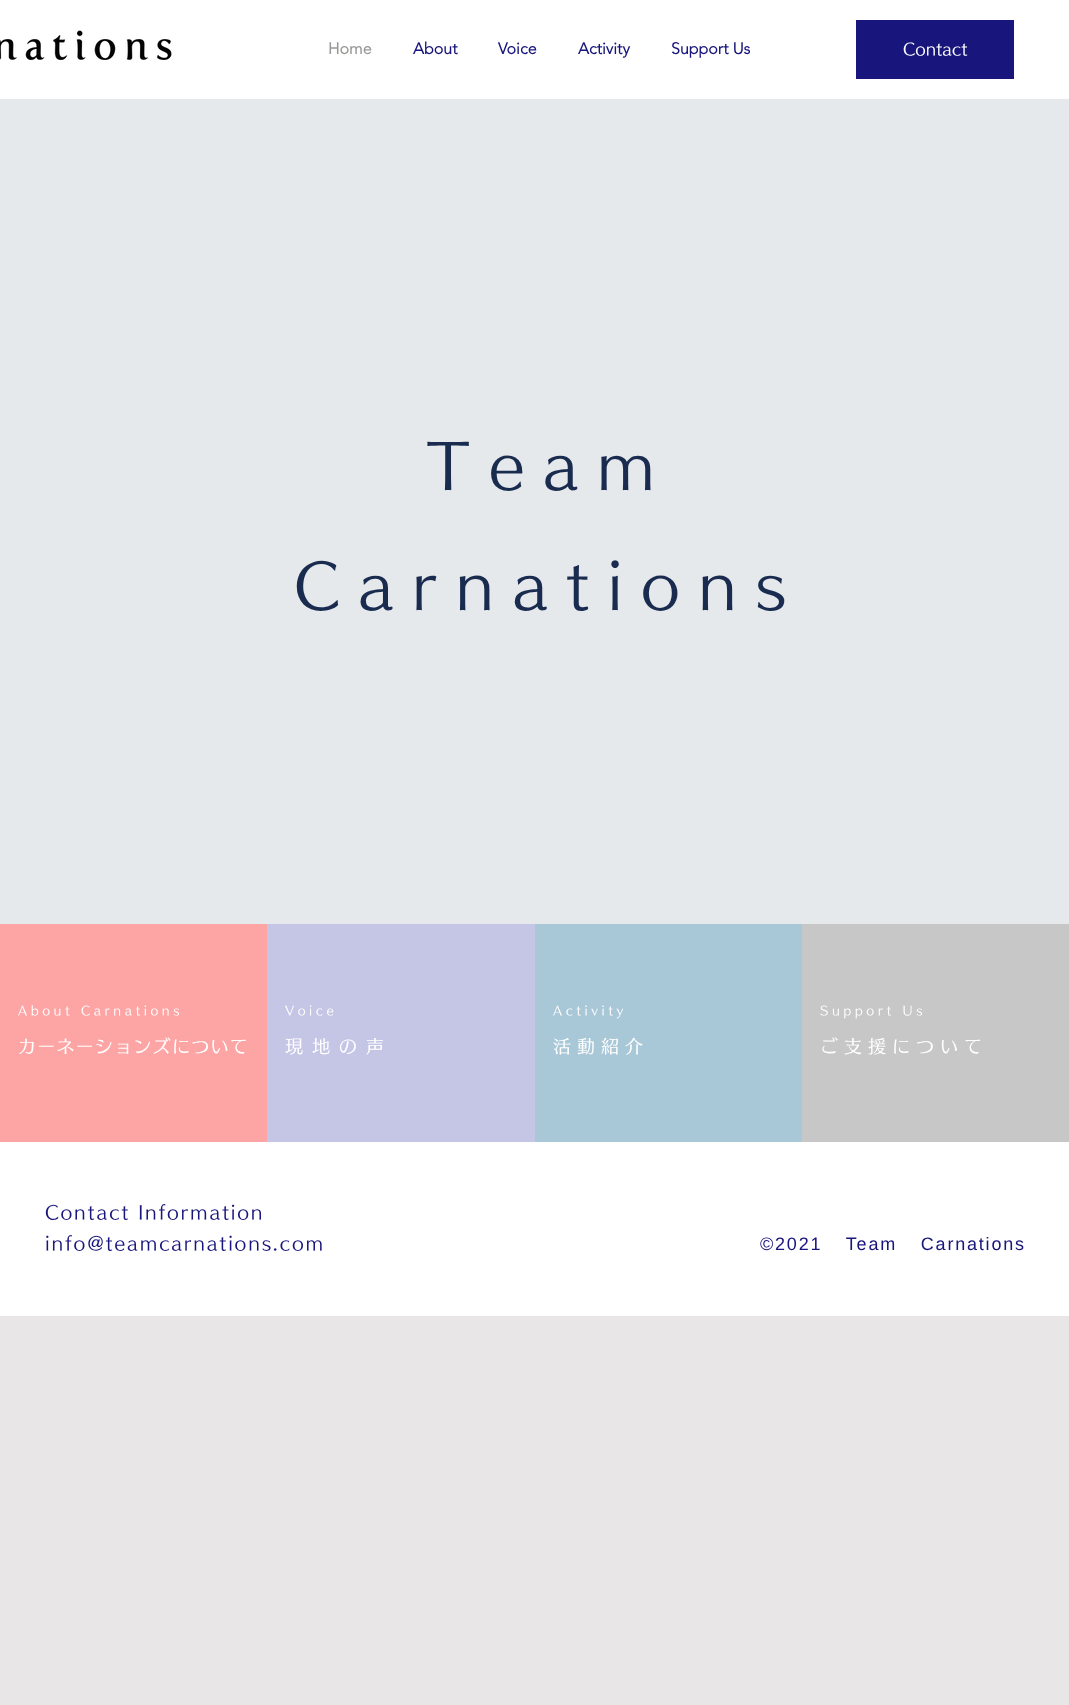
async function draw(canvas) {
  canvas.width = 1069
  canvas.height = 1705
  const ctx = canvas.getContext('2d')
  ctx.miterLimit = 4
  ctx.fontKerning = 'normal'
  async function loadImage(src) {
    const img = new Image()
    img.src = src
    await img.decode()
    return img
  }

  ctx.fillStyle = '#e8e6e6'
  ctx.fillRect(0, 0, 1069, 1705)
  ctx.fillStyle = '#fff'
  ctx.fillRect(0, 0, 1069, 99)
  ctx.drawImage(await loadImage('image0.png'), 0, 30, 172, 30)
  ctx.font = 'bold 16px "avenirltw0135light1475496"'
  ctx.fillStyle = '#999997'
  ctx.fillText('Home', 328, 54)
  ctx.fillStyle = '#18157c'
  ctx.fillText('About', 413, 54)
  ctx.fillText('Voice', 498, 54)
  ctx.fillText('Activity', 578, 54)
  ctx.fillText('Support Us', 671, 54)
  ctx.fillRect(856, 20, 158, 59)
  ctx.font = '500 16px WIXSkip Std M'
  ctx.fillStyle = '#fff'
  ctx.fillText('Contact', 903, 55)
  ctx.fillStyle = '#e6e9eb'
  ctx.fillRect(0, 99, 1069, 825)
  ctx.letterSpacing = '18px'
  ctx.font = '500 60px WIXSkip Std M'
  ctx.fillStyle = '#1a2b50'
  ctx.fillText('Team', 426, 488)
  ctx.fillText('Carnations', 294, 608)
  ctx.fillStyle = '#fda5a5'
  ctx.fillRect(0, 924, 267, 218)
  ctx.letterSpacing = '3.6px'
  ctx.font = '500 12px WIXSkip Std M'
  ctx.fillStyle = '#fff'
  ctx.fillText('About Carnations', 18, 1015)
  ctx.letterSpacing = '1.25px'
  ctx.font = '500 18px WIXSkip Std M'
  ctx.fillText('カーネーションズについて', 18, 1053)
  ctx.fillStyle = '#c5c5e6'
  ctx.fillRect(267, 924, 268, 218)
  ctx.letterSpacing = '3.6px'
  ctx.font = '500 12px WIXSkip Std M'
  ctx.fillStyle = '#fff'
  ctx.fillText('Voice', 285, 1015)
  ctx.letterSpacing = '9px'
  ctx.font = '500 18px WIXSkip Std M'
  ctx.fillText('現地の声', 285, 1053)
  ctx.fillStyle = '#a8c7d7'
  ctx.fillRect(535, 924, 267, 218)
  ctx.letterSpacing = '3.6px'
  ctx.font = '500 12px WIXSkip Std M'
  ctx.fillStyle = '#fff'
  ctx.fillText('Activity', 553, 1015)
  ctx.letterSpacing = '6px'
  ctx.font = '500 18px WIXSkip Std M'
  ctx.fillText('活動紹介', 553, 1053)
  ctx.fillStyle = '#c7c7c7'
  ctx.fillRect(802, 924, 267, 218)
  ctx.letterSpacing = '3.6px'
  ctx.font = '500 12px WIXSkip Std M'
  ctx.fillStyle = '#fff'
  ctx.fillText('Support Us', 820, 1015)
  ctx.letterSpacing = '6px'
  ctx.font = '500 18px WIXSkip Std M'
  ctx.fillText('ご支援について', 820, 1053)
  ctx.fillRect(0, 1142, 1069, 174)
  ctx.letterSpacing = '1.8px'
  ctx.fillStyle = '#18157c'
  ctx.fillText('Contact Information', 45, 1219)
  ctx.fillText('info@teamcarnations.com', 45, 1250)
  ctx.wordSpacing = '17px'
  ctx.font = '18px Liberation Sans'
  ctx.fillText('©2021 Team Carnations', 760, 1250)
}

draw(document.querySelector('canvas'))
